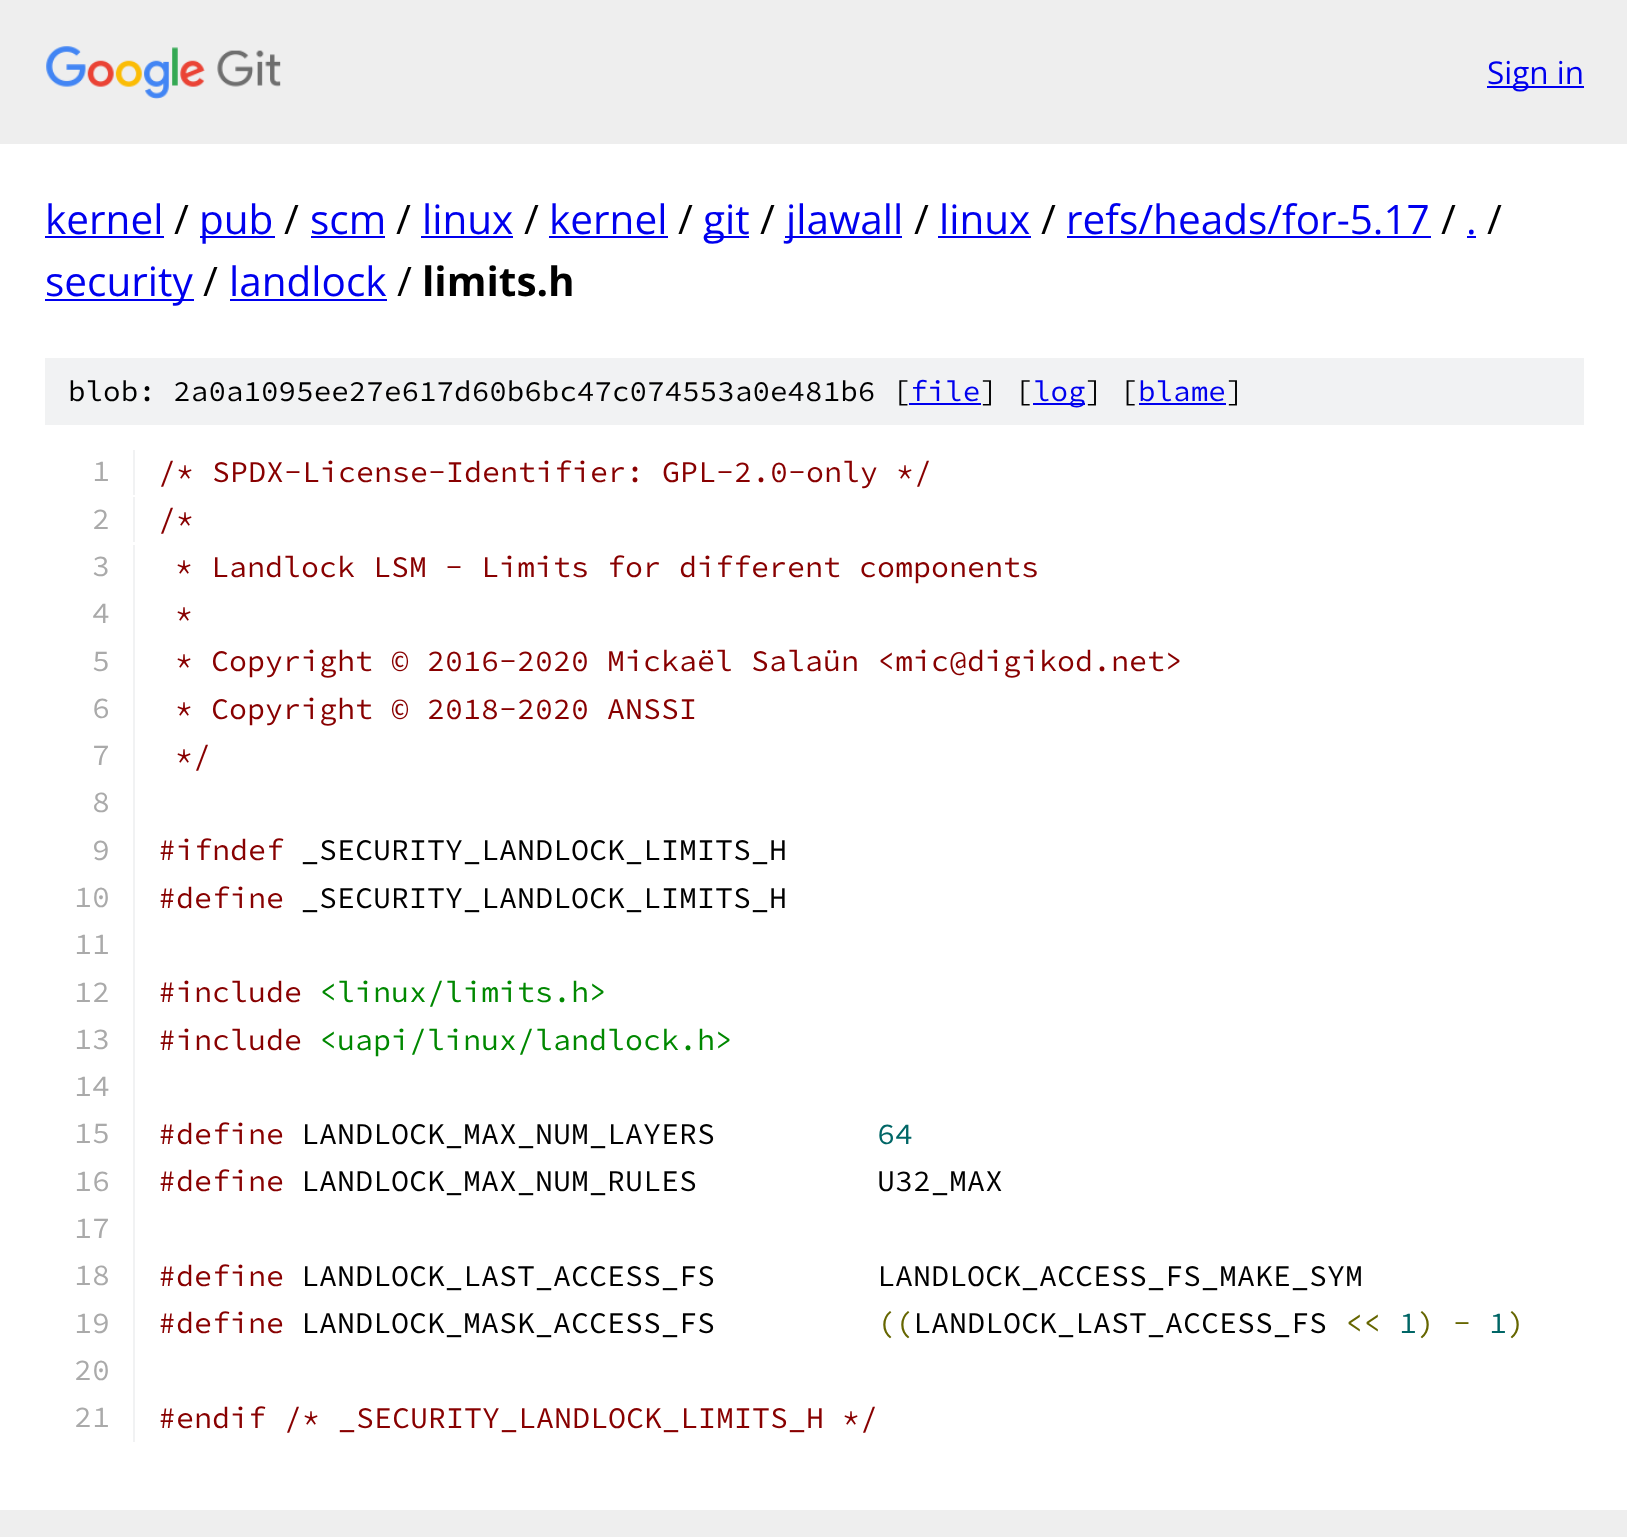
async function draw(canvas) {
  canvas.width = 1627
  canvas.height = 1537
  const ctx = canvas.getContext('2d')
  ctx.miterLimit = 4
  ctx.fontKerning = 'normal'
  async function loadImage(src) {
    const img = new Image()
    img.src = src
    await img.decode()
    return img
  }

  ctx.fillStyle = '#fff'
  ctx.fillRect(0, 0, 1627, 1537)
  ctx.fillStyle = '#eee'
  ctx.fillRect(0, 0, 1627, 144)
  ctx.drawImage(await loadImage('image0.png'), 46, 46, 235, 53)
  ctx.fillStyle = '#00e'
  ctx.fillRect(1487, 86, 97, 2)
  ctx.font = '31.5px Open Sans'
  ctx.fillText('Sign in', 1487, 84)
  ctx.font = '40.5px Open Sans'
  ctx.fillText('kernel', 45, 234)
  ctx.fillRect(45, 236, 119, 2)
  ctx.fillStyle = '#000'
  ctx.fillText('/', 174, 234)
  ctx.fillStyle = '#00e'
  ctx.fillRect(200, 236, 75, 2)
  ctx.fillText('pub', 199, 234)
  ctx.fillStyle = '#000'
  ctx.fillText('/', 284, 234)
  ctx.fillStyle = '#00e'
  ctx.fillText('scm', 310, 234)
  ctx.fillRect(311, 236, 74, 2)
  ctx.fillStyle = '#000'
  ctx.fillText('/', 396, 234)
  ctx.fillStyle = '#00e'
  ctx.fillText('linux', 422, 234)
  ctx.fillRect(421, 236, 92, 2)
  ctx.fillStyle = '#000'
  ctx.fillText('/', 524, 234)
  ctx.fillStyle = '#00e'
  ctx.fillText('kernel', 549, 234)
  ctx.fillRect(549, 236, 119, 2)
  ctx.fillStyle = '#000'
  ctx.fillText('/', 678, 234)
  ctx.fillStyle = '#00e'
  ctx.fillRect(704, 236, 45, 2)
  ctx.fillText('git', 703, 234)
  ctx.fillStyle = '#000'
  ctx.fillText('/', 760, 234)
  ctx.fillStyle = '#00e'
  ctx.fillRect(785, 236, 117, 2)
  ctx.fillText('jlawall', 786, 234)
  ctx.fillStyle = '#000'
  ctx.fillText('/', 914, 234)
  ctx.fillStyle = '#00e'
  ctx.fillText('linux', 939, 234)
  ctx.fillRect(938, 236, 93, 2)
  ctx.fillStyle = '#000'
  ctx.fillText('/', 1041, 234)
  ctx.fillStyle = '#00e'
  ctx.fillText('refs/heads/for-5.17', 1066, 234)
  ctx.fillRect(1067, 236, 364, 2)
  ctx.fillStyle = '#000'
  ctx.fillText('/', 1441, 234)
  ctx.fillStyle = '#00e'
  ctx.fillText('.', 1466, 234)
  ctx.fillRect(1467, 236, 9, 2)
  ctx.fillStyle = '#000'
  ctx.fillText('/', 1487, 234)
  ctx.fillStyle = '#00e'
  ctx.fillRect(45, 299, 149, 2)
  ctx.fillText('security', 45, 296)
  ctx.fillStyle = '#000'
  ctx.fillText('/', 203, 296)
  ctx.fillStyle = '#00e'
  ctx.fillText('landlock', 229, 296)
  ctx.fillRect(230, 299, 157, 2)
  ctx.fillStyle = '#000'
  ctx.fillText('/', 397, 296)
  ctx.font = 'bold 40.5px Open Sans'
  ctx.fillText('limits.h', 422, 296)
  ctx.fillStyle = '#f1f2f3'
  ctx.fillRect(45, 358, 1539, 67)
  ctx.font = '200 29.25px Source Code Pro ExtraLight'
  ctx.fillStyle = '#000'
  ctx.fillText('blob: 2a0a1095ee27e617d60b6bc47c074553a0e481b6 [', 68, 401)
  ctx.fillStyle = '#00e'
  ctx.fillText('file', 910, 401)
  ctx.fillRect(909, 403, 72, 2)
  ctx.fillStyle = '#000'
  ctx.fillText('] [', 980, 401)
  ctx.fillStyle = '#00e'
  ctx.fillRect(1033, 403, 52, 2)
  ctx.fillText('log', 1033, 401)
  ctx.fillStyle = '#000'
  ctx.fillText('] [', 1085, 401)
  ctx.fillStyle = '#00e'
  ctx.fillText('blame', 1138, 401)
  ctx.fillRect(1139, 403, 87, 2)
  ctx.fillStyle = '#000'
  ctx.fillText(']', 1226, 401)
  ctx.fillStyle = '#f1f2f3'
  ctx.fillRect(133, 450, 2, 45)
  ctx.font = '200 30px Source Code Pro ExtraLight'
  ctx.fillStyle = '#aaa'
  ctx.fillText('1', 92, 481)
  ctx.fillStyle = '#800'
  ctx.fillText('/* SPDX-License-Identifier: GPL-2.0-only */', 158, 482)
  ctx.fillStyle = '#f1f2f3'
  ctx.fillRect(133, 497, 2, 45)
  ctx.fillStyle = '#aaa'
  ctx.fillText('2', 92, 529)
  ctx.fillStyle = '#800'
  ctx.fillText('/*', 158, 529)
  ctx.fillStyle = '#f1f2f3'
  ctx.fillRect(133, 545, 2, 897)
  ctx.fillStyle = '#aaa'
  ctx.fillText('3', 92, 576)
  ctx.fillStyle = '#800'
  ctx.fillText('* Landlock LSM - Limits for different components', 175, 577)
  ctx.fillStyle = '#aaa'
  ctx.fillText('4', 92, 623)
  ctx.fillStyle = '#800'
  ctx.fillText('*', 175, 624)
  ctx.fillStyle = '#aaa'
  ctx.fillText('5', 92, 671)
  ctx.fillStyle = '#800'
  ctx.fillText('* Copyright © 2016-2020 Mickaël Salaün <mic@digikod.net>', 175, 671)
  ctx.fillStyle = '#aaa'
  ctx.fillText('6', 92, 718)
  ctx.fillStyle = '#800'
  ctx.fillText('* Copyright © 2018-2020 ANSSI', 175, 719)
  ctx.fillStyle = '#aaa'
  ctx.fillText('7', 92, 765)
  ctx.fillStyle = '#800'
  ctx.fillText('*/', 175, 766)
  ctx.fillStyle = '#aaa'
  ctx.fillText('8', 92, 812)
  ctx.fillText('9', 92, 860)
  ctx.fillStyle = '#800'
  ctx.fillText('#ifndef', 158, 860)
  ctx.fillStyle = '#000'
  ctx.fillText('_SECURITY_LANDLOCK_LIMITS_H', 301, 860)
  ctx.fillStyle = '#aaa'
  ctx.fillText('10', 74, 907)
  ctx.fillStyle = '#800'
  ctx.fillText('#define', 158, 908)
  ctx.fillStyle = '#000'
  ctx.fillText('_SECURITY_LANDLOCK_LIMITS_H', 301, 908)
  ctx.fillStyle = '#aaa'
  ctx.fillText('11', 74, 954)
  ctx.fillText('12', 74, 1002)
  ctx.fillStyle = '#800'
  ctx.fillText('#include', 158, 1002)
  ctx.fillStyle = '#080'
  ctx.fillText('<linux/limits.h>', 319, 1002)
  ctx.fillStyle = '#aaa'
  ctx.fillText('13', 74, 1049)
  ctx.fillStyle = '#800'
  ctx.fillText('#include', 158, 1050)
  ctx.fillStyle = '#080'
  ctx.fillText('<uapi/linux/landlock.h>', 319, 1050)
  ctx.fillStyle = '#aaa'
  ctx.fillText('14', 74, 1096)
  ctx.fillText('15', 74, 1143)
  ctx.fillStyle = '#800'
  ctx.fillText('#define', 158, 1144)
  ctx.fillStyle = '#000'
  ctx.fillText('LANDLOCK_MAX_NUM_LAYERS', 301, 1144)
  ctx.fillStyle = '#066'
  ctx.fillText('64', 877, 1144)
  ctx.fillStyle = '#aaa'
  ctx.fillText('16', 74, 1191)
  ctx.fillStyle = '#800'
  ctx.fillText('#define', 158, 1191)
  ctx.fillStyle = '#000'
  ctx.fillText('LANDLOCK_MAX_NUM_RULES', 301, 1191)
  ctx.fillText('U32_MAX', 877, 1191)
  ctx.fillStyle = '#aaa'
  ctx.fillText('17', 74, 1238)
  ctx.fillText('18', 74, 1285)
  ctx.fillStyle = '#800'
  ctx.fillText('#define', 158, 1286)
  ctx.fillStyle = '#000'
  ctx.fillText('LANDLOCK_LAST_ACCESS_FS', 301, 1286)
  ctx.fillText('LANDLOCK_ACCESS_FS_MAKE_SYM', 877, 1286)
  ctx.fillStyle = '#aaa'
  ctx.fillText('19', 74, 1333)
  ctx.fillStyle = '#800'
  ctx.fillText('#define', 158, 1333)
  ctx.fillStyle = '#000'
  ctx.fillText('LANDLOCK_MASK_ACCESS_FS', 301, 1333)
  ctx.fillStyle = '#660'
  ctx.fillText('((', 877, 1333)
  ctx.fillStyle = '#000'
  ctx.fillText('LANDLOCK_LAST_ACCESS_FS', 913, 1333)
  ctx.fillStyle = '#660'
  ctx.fillText('<<', 1345, 1333)
  ctx.fillStyle = '#066'
  ctx.fillText('1', 1399, 1333)
  ctx.fillStyle = '#660'
  ctx.fillText(') -', 1417, 1333)
  ctx.fillStyle = '#066'
  ctx.fillText('1', 1489, 1333)
  ctx.fillStyle = '#660'
  ctx.fillText(')', 1507, 1333)
  ctx.fillStyle = '#aaa'
  ctx.fillText('20', 74, 1380)
  ctx.fillText('21', 74, 1427)
  ctx.fillStyle = '#800'
  ctx.fillText('#endif /* _SECURITY_LANDLOCK_LIMITS_H */', 158, 1428)
  ctx.fillStyle = '#eee'
  ctx.fillRect(0, 1510, 1627, 27)
}

draw(document.querySelector('canvas'))
